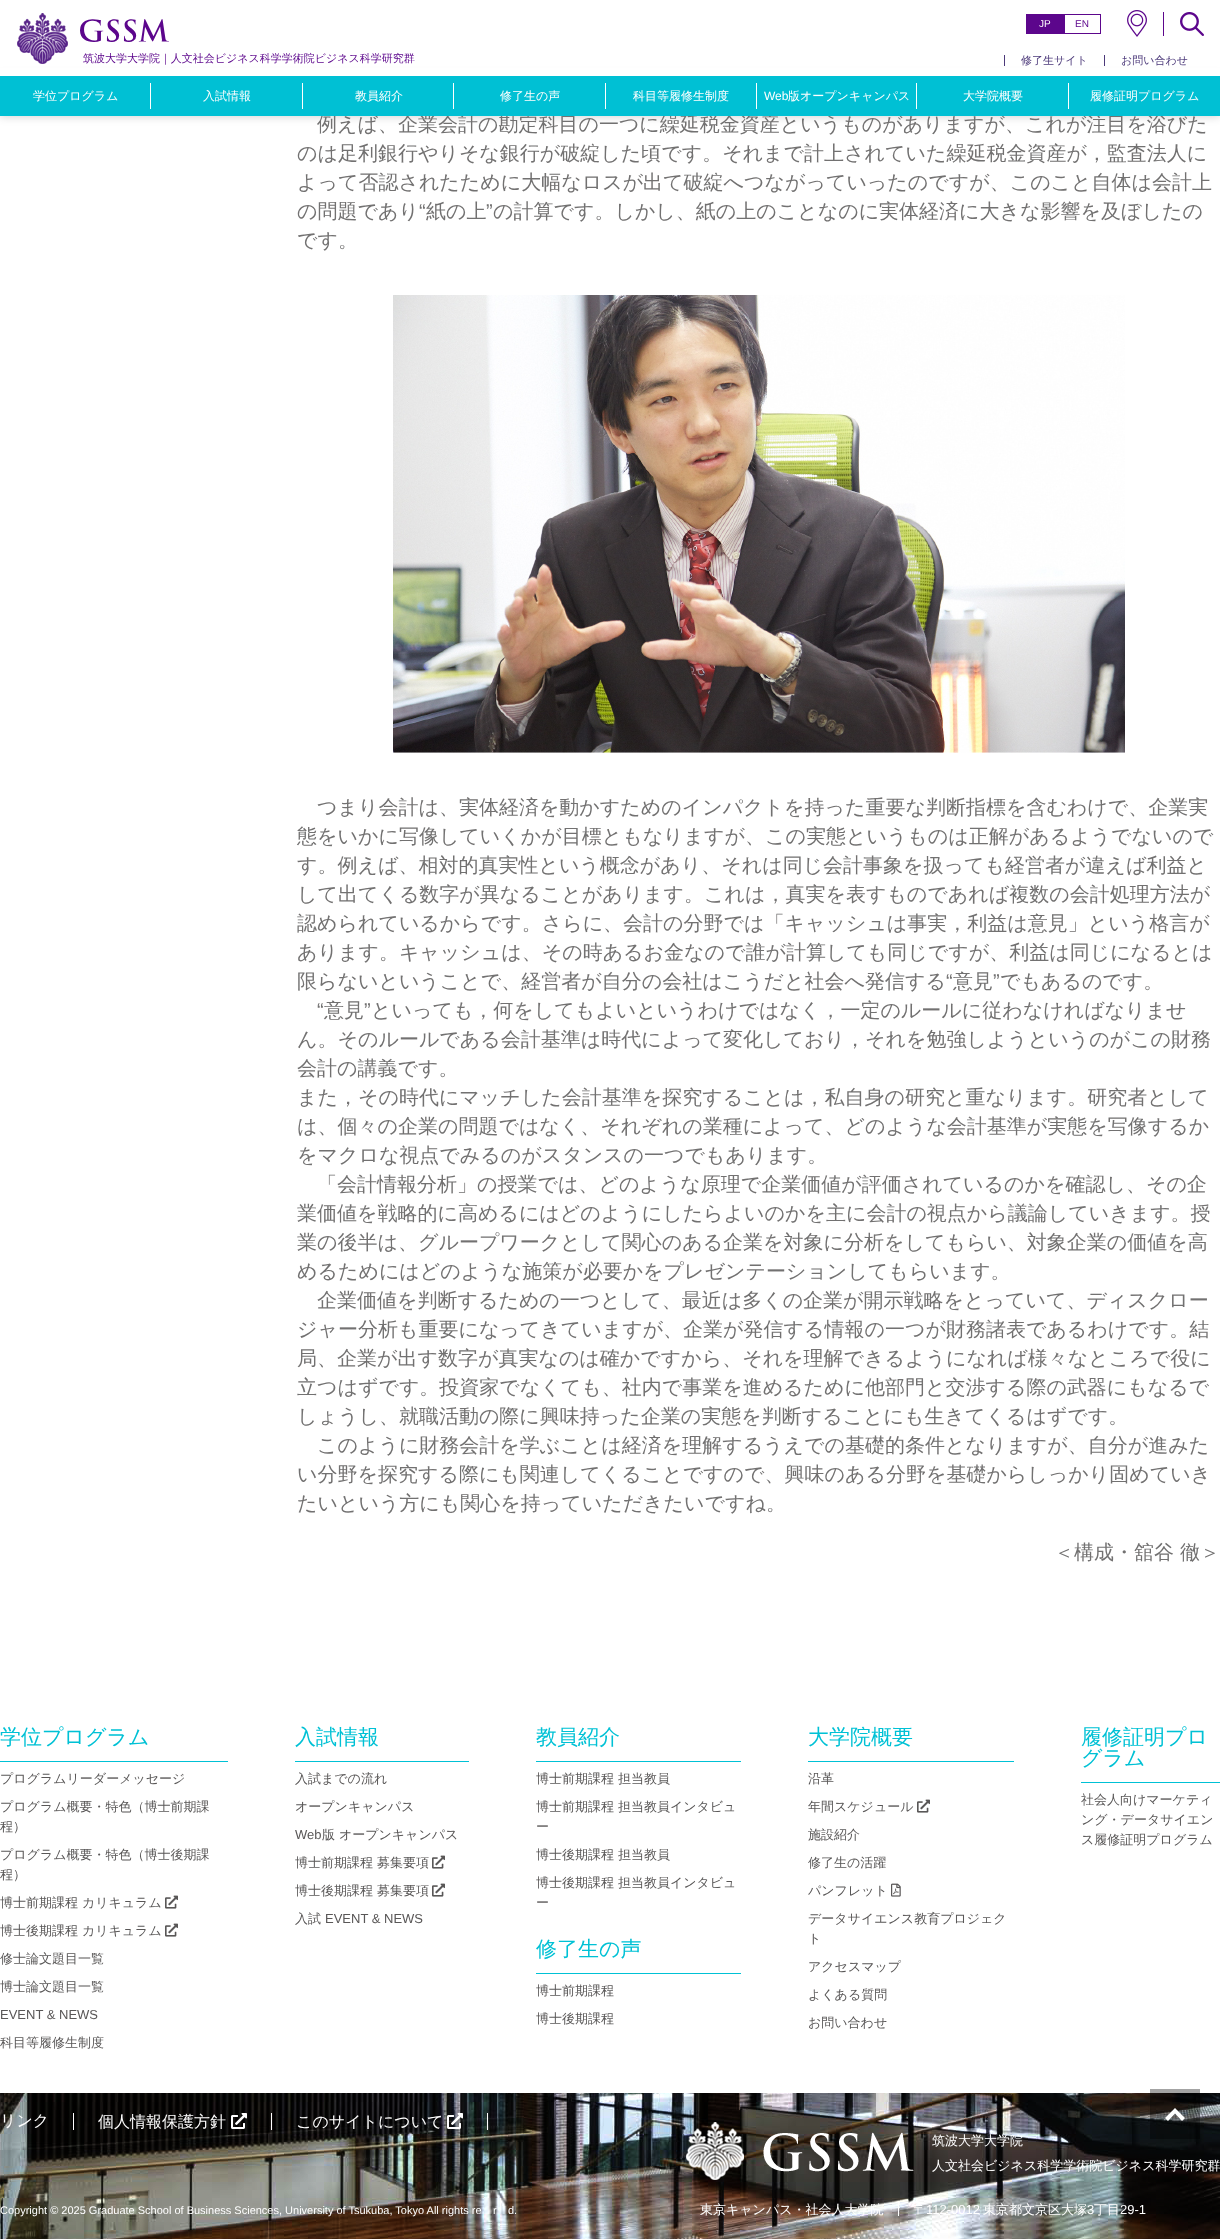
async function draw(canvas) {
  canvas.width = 1220
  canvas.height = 2239
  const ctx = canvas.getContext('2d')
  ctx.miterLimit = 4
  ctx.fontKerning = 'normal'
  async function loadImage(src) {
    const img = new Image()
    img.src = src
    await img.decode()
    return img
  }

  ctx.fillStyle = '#fff'
  ctx.fillRect(0, 0, 1220, 2239)
  ctx.fillStyle = '#00000033'
  ctx.filter = 'blur(5px)'
  ctx.beginPath()
  ctx.rect(0, 76, 1220, 40)
  ctx.fill()
  ctx.filter = 'none'
  ctx.fillStyle = '#fff'
  ctx.fillRect(0, 68, 1220, 8)
  ctx.drawImage(await loadImage('image0.png'), 17, 13, 152, 51)
  ctx.font = '500 11px WenQuanYi Zen Hei'
  ctx.fillStyle = '#5c068c'
  ctx.fillText('筑波大学大学院｜人文社会ビジネス科学学術院ビジネス科学研究群', 83, 62)
  ctx.fillRect(1026, 14, 38, 20)
  ctx.font = '10px Liberation Sans'
  ctx.fillStyle = '#fff'
  ctx.fillText('JP', 1039, 27)
  ctx.strokeStyle = '#5c068c'
  ctx.strokeRect(1064.5, 14.5, 36, 19)
  ctx.fillStyle = '#5c068c'
  ctx.fillText('EN', 1075, 27)
  ctx.drawImage(await loadImage('image1.png'), 1127, 10, 20, 27)
  ctx.fillRect(1163, 12, 1, 24)
  ctx.drawImage(await loadImage('image2.png'), 1180, 12, 24, 24)
  ctx.fillStyle = '#4b3879'
  ctx.fillRect(1004, 55, 1, 11)
  ctx.font = '500 11px WenQuanYi Zen Hei'
  ctx.fillText('修了生サイト', 1021, 64)
  ctx.fillRect(1104, 55, 1, 11)
  ctx.fillText('お問い合わせ', 1121, 64)
  ctx.font = '500 20px WenQuanYi Zen Hei'
  ctx.fillStyle = '#727171'
  ctx.fillText('例えば、企業会計の勘定科目の一つに繰延税金資産というものがありますが、これが注目を浴びた', 317, 131)
  ctx.fillStyle = '#00c0d4'
  ctx.fillRect(0, 76, 1220, 40)
  ctx.font = '500 12px WenQuanYi Zen Hei'
  ctx.fillStyle = '#fff'
  ctx.fillText('学位プログラム', 33, 100)
  ctx.fillRect(150, 83, 1, 26)
  ctx.fillText('入試情報', 203, 100)
  ctx.fillRect(302, 83, 1, 26)
  ctx.fillText('教員紹介', 355, 100)
  ctx.fillRect(453, 83, 1, 26)
  ctx.fillText('修了生の声', 500, 100)
  ctx.fillRect(605, 83, 1, 26)
  ctx.fillText('科目等履修生制度', 633, 100)
  ctx.fillRect(756, 83, 1, 26)
  ctx.font = '12px Liberation Sans'
  ctx.fillText('Web', 764, 100)
  ctx.font = '500 12px WenQuanYi Zen Hei'
  ctx.fillText('版オープンキャンパス', 788, 100)
  ctx.fillRect(916, 83, 1, 26)
  ctx.fillText('大学院概要', 963, 100)
  ctx.fillRect(1068, 83, 1, 26)
  ctx.fillText('履修証明プログラム', 1090, 100)
  ctx.font = '500 20px WenQuanYi Zen Hei'
  ctx.fillStyle = '#727171'
  ctx.fillText('のは足利銀行やりそな銀行が破綻した頃です。それまで計上されていた繰延税金資産が，監査法人に', 297, 160)
  ctx.fillText('よって否認されたために大幅なロスが出て破綻へつながっていったのですが、このこと自体は会計上', 297, 189)
  ctx.fillText('の問題であり', 297, 218)
  ctx.font = '20px Liberation Sans'
  ctx.fillText('“', 419, 218)
  ctx.font = '500 20px WenQuanYi Zen Hei'
  ctx.fillText('紙の上', 426, 218)
  ctx.font = '20px Liberation Sans'
  ctx.fillText('”', 486, 218)
  ctx.font = '500 20px WenQuanYi Zen Hei'
  ctx.fillText('の計算です。しかし、紙の上のことなのに実体経済に大きな影響を及ぼしたの', 493, 218)
  ctx.fillText('です。', 297, 247)
  ctx.drawImage(await loadImage('image3.png'), 393, 295, 732, 458)
  ctx.fillText('つまり会計は、実体経済を動かすためのインパクトを持った重要な判断指標を含むわけで、企業実', 317, 814)
  ctx.fillText('態をいかに写像していくかが目標ともなりますが、この実態というものは正解があるようでないので', 297, 843)
  ctx.fillText('す。例えば、相対的真実性という概念があり、それは同じ会計事象を扱っても経営者が違えば利益と', 297, 872)
  ctx.fillText('して出てくる数字が異なることがあります。これは，真実を表すものであれば複数の会計処理方法が', 297, 901)
  ctx.fillText('認められているからです。さらに、会計の分野では「キャッシュは事実，利益は意見」という格言が', 297, 930)
  ctx.fillText('あります。キャッシュは、その時あるお金なので誰が計算しても同じですが、利益は同じになるとは', 297, 959)
  ctx.fillText('限らないということで、経営者が自分の会社はこうだと社会へ発信する', 297, 988)
  ctx.font = '20px Liberation Sans'
  ctx.fillText('“', 946, 988)
  ctx.font = '500 20px WenQuanYi Zen Hei'
  ctx.fillText('意見', 953, 988)
  ctx.font = '20px Liberation Sans'
  ctx.fillText('”', 993, 988)
  ctx.font = '500 20px WenQuanYi Zen Hei'
  ctx.fillText('でもあるのです。', 1000, 988)
  ctx.font = '20px Liberation Sans'
  ctx.fillText('“', 317, 1017)
  ctx.font = '500 20px WenQuanYi Zen Hei'
  ctx.fillText('意見', 324, 1017)
  ctx.font = '20px Liberation Sans'
  ctx.fillText('”', 364, 1017)
  ctx.font = '500 20px WenQuanYi Zen Hei'
  ctx.fillText('といっても，何をしてもよいというわけではなく，一定のルールに従わなければなりませ', 371, 1017)
  ctx.fillText('ん。そのルールである会計基準は時代によって変化しており，それを勉強しようというのがこの財務', 297, 1046)
  ctx.fillText('会計の講義です。', 297, 1075)
  ctx.fillText('また，その時代にマッチした会計基準を探究することは，私自身の研究と重なります。研究者として', 297, 1104)
  ctx.fillText('は、個々の企業の問題ではなく、それぞれの業種によって、どのような会計基準が実態を写像するか', 297, 1133)
  ctx.fillText('をマクロな視点でみるのがスタンスの一つでもあります。', 297, 1162)
  ctx.fillText('「会計情報分析」の授業では、どのような原理で企業価値が評価されているのかを確認し、その企', 317, 1191)
  ctx.fillText('業価値を戦略的に高めるにはどのようにしたらよいのかを主に会計の視点から議論していきます。授', 297, 1220)
  ctx.fillText('業の後半は、グループワークとして関心のある企業を対象に分析をしてもらい、対象企業の価値を高', 297, 1249)
  ctx.fillText('めるためにはどのような施策が必要かをプレゼンテーションしてもらいます。', 297, 1278)
  ctx.fillText('企業価値を判断するための一つとして、最近は多くの企業が開示戦略をとっていて、ディスクロー', 317, 1307)
  ctx.fillText('ジャー分析も重要になってきていますが、企業が発信する情報の一つが財務諸表であるわけです。結', 297, 1336)
  ctx.fillText('局、企業が出す数字が真実なのは確かですから、それを理解できるようになれば様々なところで役に', 297, 1365)
  ctx.fillText('立つはずです。投資家でなくても、社内で事業を進めるために他部門と交渉する際の武器にもなるで', 297, 1394)
  ctx.fillText('しょうし、就職活動の際に興味持った企業の実態を判断することにも生きてくるはずです。', 297, 1423)
  ctx.fillText('このように財務会計を学ぶことは経済を理解するうえでの基礎的条件となりますが、自分が進みた', 317, 1452)
  ctx.fillText('い分野を探究する際にも関連してくることですので、興味のある分野を基礎からしっかり固めていき', 297, 1481)
  ctx.fillText('たいという方にも関心を持っていただきたいですね。', 297, 1510)
  ctx.fillText('＜構成・舘谷 徹＞', 1054, 1559)
  ctx.fillStyle = '#00c1d5'
  ctx.fillRect(0, 1761, 228, 1)
  ctx.font = '500 21px WenQuanYi Zen Hei'
  ctx.fillText('学位プログラム', 0, 1744)
  ctx.font = '500 13px WenQuanYi Zen Hei'
  ctx.fillStyle = '#595757'
  ctx.fillText('プログラムリーダーメッセージ', 0, 1783)
  ctx.fillText('プログラム概要・特色（博士前期課', 0, 1811)
  ctx.fillText('程）', 0, 1831)
  ctx.fillText('プログラム概要・特色（博士後期課', 0, 1859)
  ctx.fillText('程）', 0, 1879)
  ctx.fillText('博士前期課程 カリキュラム', 0, 1907)
  ctx.drawImage(await loadImage('image4.png'), 165, 1895, 13, 14)
  ctx.fillText('博士後期課程 カリキュラム', 0, 1935)
  ctx.drawImage(await loadImage('image4.png'), 165, 1923, 13, 14)
  ctx.fillText('修士論文題目一覧', 0, 1963)
  ctx.fillText('博士論文題目一覧', 0, 1991)
  ctx.font = '13px Liberation Sans'
  ctx.fillText('EVENT & NEWS', 0, 2019)
  ctx.font = '500 13px WenQuanYi Zen Hei'
  ctx.fillText('科目等履修生制度', 0, 2047)
  ctx.fillStyle = '#00c1d5'
  ctx.fillRect(295, 1761, 174, 1)
  ctx.font = '500 21px WenQuanYi Zen Hei'
  ctx.fillText('入試情報', 295, 1744)
  ctx.font = '500 13px WenQuanYi Zen Hei'
  ctx.fillStyle = '#595757'
  ctx.fillText('入試までの流れ', 295, 1783)
  ctx.fillText('オープンキャンパス', 295, 1811)
  ctx.font = '13px Liberation Sans'
  ctx.fillText('Web', 295, 1839)
  ctx.font = '500 13px WenQuanYi Zen Hei'
  ctx.fillText('版 オープンキャンパス', 322, 1839)
  ctx.fillText('博士前期課程 募集要項', 295, 1867)
  ctx.drawImage(await loadImage('image4.png'), 432, 1855, 13, 14)
  ctx.fillText('博士後期課程 募集要項', 295, 1895)
  ctx.drawImage(await loadImage('image4.png'), 432, 1883, 13, 14)
  ctx.fillText('入試', 295, 1923)
  ctx.font = '13px Liberation Sans'
  ctx.fillText('EVENT & NEWS', 325, 1923)
  ctx.fillStyle = '#00c1d5'
  ctx.fillRect(536, 1761, 205, 1)
  ctx.font = '500 21px WenQuanYi Zen Hei'
  ctx.fillText('教員紹介', 536, 1744)
  ctx.font = '500 13px WenQuanYi Zen Hei'
  ctx.fillStyle = '#595757'
  ctx.fillText('博士前期課程 担当教員', 536, 1783)
  ctx.fillText('博士前期課程 担当教員インタビュ', 536, 1811)
  ctx.fillText('ー', 536, 1831)
  ctx.fillText('博士後期課程 担当教員', 536, 1859)
  ctx.fillText('博士後期課程 担当教員インタビュ', 536, 1887)
  ctx.fillText('ー', 536, 1907)
  ctx.fillStyle = '#00c1d5'
  ctx.fillRect(536, 1973, 205, 1)
  ctx.font = '500 21px WenQuanYi Zen Hei'
  ctx.fillText('修了生の声', 536, 1956)
  ctx.font = '500 13px WenQuanYi Zen Hei'
  ctx.fillStyle = '#595757'
  ctx.fillText('博士前期課程', 536, 1995)
  ctx.fillText('博士後期課程', 536, 2023)
  ctx.fillStyle = '#00c1d5'
  ctx.fillRect(808, 1761, 206, 1)
  ctx.font = '500 21px WenQuanYi Zen Hei'
  ctx.fillText('大学院概要', 808, 1744)
  ctx.font = '500 13px WenQuanYi Zen Hei'
  ctx.fillStyle = '#595757'
  ctx.fillText('沿革', 808, 1783)
  ctx.fillText('年間スケジュール', 808, 1811)
  ctx.drawImage(await loadImage('image4.png'), 917, 1799, 13, 14)
  ctx.fillText('施設紹介', 808, 1839)
  ctx.fillText('修了生の活躍', 808, 1867)
  ctx.fillText('パンフレット', 808, 1895)
  ctx.drawImage(await loadImage('image5.png'), 891, 1883, 10, 14)
  ctx.fillText('データサイエンス教育プロジェク', 808, 1923)
  ctx.fillText('ト', 808, 1943)
  ctx.fillText('アクセスマップ', 808, 1971)
  ctx.fillText('よくある質問', 808, 1999)
  ctx.fillText('お問い合わせ', 808, 2027)
  ctx.fillStyle = '#00c1d5'
  ctx.fillRect(1081, 1782, 139, 1)
  ctx.font = '500 21px WenQuanYi Zen Hei'
  ctx.fillText('履修証明プロ', 1081, 1744)
  ctx.fillText('グラム', 1081, 1765)
  ctx.font = '500 13px WenQuanYi Zen Hei'
  ctx.fillStyle = '#595757'
  ctx.fillText('社会人向けマーケティ', 1081, 1804)
  ctx.fillText('ング・データサイエン', 1081, 1824)
  ctx.fillText('ス履修証明プログラム', 1081, 1844)
  ctx.drawImage(await loadImage('image6.png'), 0, 2093, 1220, 146)
  ctx.fillStyle = '#0000005c'
  ctx.fillRect(1150, 2089, 50, 50)
  ctx.fillStyle = '#fff'
  ctx.beginPath()
  ctx.moveTo(1175, 2108)
  ctx.lineTo(1165, 2118)
  ctx.lineTo(1168, 2121)
  ctx.lineTo(1175, 2113.5)
  ctx.lineTo(1182, 2121)
  ctx.lineTo(1185, 2118)
  ctx.closePath()
  ctx.fill('evenodd')
  ctx.fillRect(73, 2113, 1, 17)
  ctx.font = '500 16px WenQuanYi Zen Hei'
  ctx.fillText('リンク', 0, 2126)
  ctx.fillRect(271, 2113, 1, 17)
  ctx.fillText('個人情報保護方針', 98, 2127)
  ctx.drawImage(await loadImage('image7.png'), 231, 2113, 16, 16)
  ctx.fillRect(487, 2113, 1, 17)
  ctx.fillText('このサイトについて', 296, 2127)
  ctx.drawImage(await loadImage('image8.png'), 447, 2113, 16, 16)
  ctx.drawImage(await loadImage('image9.png'), 686, 2122, 228, 58)
  ctx.font = '500 13px WenQuanYi Zen Hei'
  ctx.fillText('筑波大学大学院', 932, 2145)
  ctx.fillText('人文社会ビジネス科学学術院ビジネス科学研究群', 932, 2170)
  ctx.font = '11px Liberation Sans'
  ctx.fillText('Copyright © 2025 Graduate School of Business Sciences, University of Tsukuba, Tokyo All rights re', 0, 2214)
  ctx.fillText('r', 493, 2214)
  ctx.fillText('d.', 508, 2214)
  ctx.fillRect(898, 2203, 1, 13)
  ctx.font = '500 13px WenQuanYi Zen Hei'
  ctx.fillText('東京キャンパス・社会人大学院', 700, 2214)
  ctx.fillText('〒', 913, 2214)
  ctx.font = '13px Liberation Sans'
  ctx.fillText('112‐0012', 926, 2214)
  ctx.font = '500 13px WenQuanYi Zen Hei'
  ctx.fillText('東京都文京区大塚', 983, 2214)
  ctx.font = '13px Liberation Sans'
  ctx.fillText('3', 1087, 2214)
  ctx.font = '500 13px WenQuanYi Zen Hei'
  ctx.fillText('丁目', 1094, 2214)
  ctx.font = '13px Liberation Sans'
  ctx.fillText('29-1', 1120, 2214)
}

draw(document.querySelector('canvas'))
